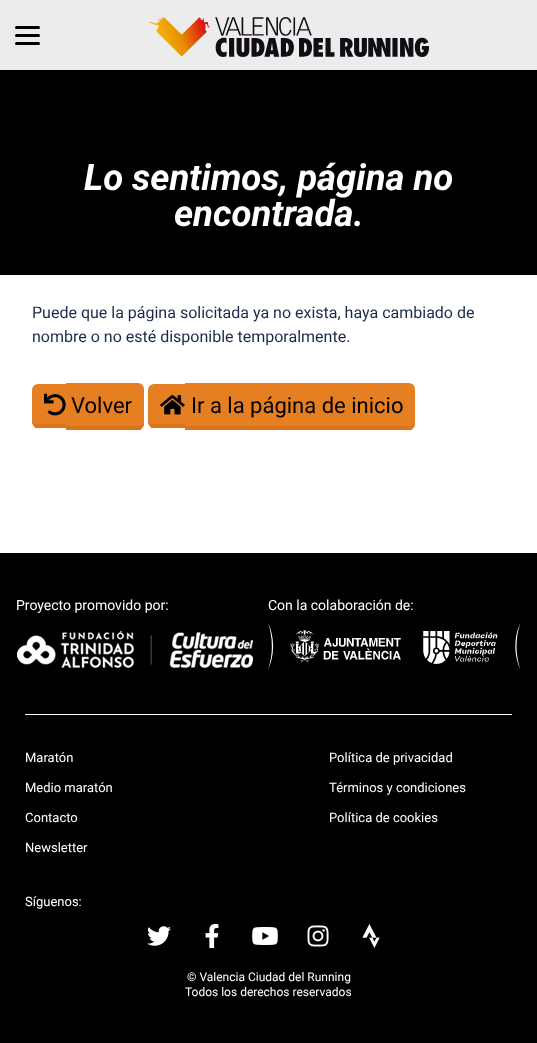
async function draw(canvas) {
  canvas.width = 537
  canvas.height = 1043
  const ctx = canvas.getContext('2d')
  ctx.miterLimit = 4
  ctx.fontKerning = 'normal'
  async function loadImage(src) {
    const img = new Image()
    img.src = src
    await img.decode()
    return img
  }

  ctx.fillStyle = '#fff'
  ctx.fillRect(0, 0, 537, 1043)
  ctx.fillStyle = '#ececec'
  ctx.fillRect(0, 0, 537, 70)
  ctx.drawImage(await loadImage('image0.png'), 149, 17, 280, 40)
  ctx.fillStyle = '#000'
  ctx.beginPath()
  ctx.roundRect(15, 26, 25, 3, 1.5)
  ctx.fill()
  ctx.beginPath()
  ctx.roundRect(15, 34, 25, 3, 1.5)
  ctx.fill()
  ctx.beginPath()
  ctx.roundRect(15, 42, 25, 3, 1.5)
  ctx.fill()
  ctx.fillRect(0, 70, 537, 205)
  ctx.font = 'italic bold 36.5px Roboto'
  ctx.fillStyle = '#fff'
  ctx.fillText('Lo sentimos, página no', 84, 190)
  ctx.fillText('encontrada.', 174, 226)
  ctx.font = '16px Roboto'
  ctx.fillStyle = '#1a2b49'
  ctx.fillText('Puede que la página solicitada ya no exista, haya cambiado de', 32, 318)
  ctx.fillText('nombre o no esté disponible temporalmente.', 32, 342)
  ctx.fillStyle = '#e67e22'
  ctx.beginPath()
  ctx.roundRect(32, 384, 34, 44, [6, 0, 0, 6])
  ctx.fill()
  ctx.fillStyle = '#da751c'
  ctx.beginPath()
  ctx.moveTo(32, 420)
  ctx.lineTo(32, 422)
  ctx.bezierCurveTo(32, 424, 34.5, 426, 38, 426)
  ctx.lineTo(66, 426)
  ctx.lineTo(66, 424)
  ctx.lineTo(38, 424)
  ctx.bezierCurveTo(35, 424, 32, 422, 32, 420)
  ctx.closePath()
  ctx.fill()
  ctx.fillRect(35, 426, 31, 2)
  ctx.fillStyle = '#e67e22'
  ctx.beginPath()
  ctx.roundRect(66, 383, 78, 47, [0, 6, 6, 0])
  ctx.fill()
  ctx.fillStyle = '#da751c'
  ctx.beginPath()
  ctx.moveTo(66, 426)
  ctx.lineTo(66, 428)
  ctx.lineTo(138, 428)
  ctx.bezierCurveTo(141, 428, 144, 426, 144, 424)
  ctx.lineTo(144, 422)
  ctx.bezierCurveTo(144, 424, 141, 426, 138, 426)
  ctx.closePath()
  ctx.fill()
  ctx.fillRect(66, 428, 75, 2)
  ctx.drawImage(await loadImage('image1.png'), 44, 393, 22, 23)
  ctx.font = '22px Roboto'
  ctx.fillStyle = '#000'
  ctx.fillText('Volver', 71, 413)
  ctx.fillStyle = '#e67e22'
  ctx.beginPath()
  ctx.roundRect(148, 384, 37, 44, [6, 0, 0, 6])
  ctx.fill()
  ctx.fillStyle = '#da751c'
  ctx.beginPath()
  ctx.moveTo(148, 420)
  ctx.lineTo(148, 422)
  ctx.bezierCurveTo(148, 424, 150.5, 426, 154, 426)
  ctx.lineTo(185, 426)
  ctx.lineTo(185, 424)
  ctx.lineTo(154, 424)
  ctx.bezierCurveTo(151, 424, 148, 422, 148, 420)
  ctx.closePath()
  ctx.fill()
  ctx.fillRect(151, 426, 34, 2)
  ctx.fillStyle = '#e67e22'
  ctx.beginPath()
  ctx.roundRect(185, 383, 230, 47, [0, 6, 6, 0])
  ctx.fill()
  ctx.fillStyle = '#da751c'
  ctx.beginPath()
  ctx.moveTo(185, 426)
  ctx.lineTo(185, 428)
  ctx.lineTo(411, 428)
  ctx.bezierCurveTo(414, 427, 415, 425, 415, 422)
  ctx.bezierCurveTo(415, 424, 412, 426, 409, 426)
  ctx.closePath()
  ctx.fill()
  ctx.fillRect(185, 428, 227, 2)
  ctx.drawImage(await loadImage('image2.png'), 160, 395, 25, 20)
  ctx.fillStyle = '#000'
  ctx.fillText('Ir a la página de inicio', 191, 413)
  ctx.fillRect(0, 553, 537, 490)
  ctx.font = '14px Roboto'
  ctx.fillStyle = '#fff'
  ctx.fillText('Proyecto promovido por:', 16, 610)
  ctx.drawImage(await loadImage('image3.png'), 17, 631, 236, 37)
  ctx.fillText('Con la colaboración de:', 268, 610)
  ctx.drawImage(await loadImage('image4.png'), 268, 623, 253, 46)
  ctx.fillRect(25, 714, 487, 1)
  ctx.font = '13px Roboto'
  ctx.fillText('Maratón', 25, 762)
  ctx.fillText('Medio maratón', 25, 792)
  ctx.fillText('Contacto', 25, 822)
  ctx.fillText('Newsletter', 25, 852)
  ctx.fillText('Política de privacidad', 329, 762)
  ctx.fillText('Términos y condiciones', 329, 792)
  ctx.fillText('Política de cookies', 329, 822)
  ctx.fillText('Síguenos:', 25, 906)
  ctx.drawImage(await loadImage('image5.png'), 147, 926, 24, 20)
  ctx.drawImage(await loadImage('image6.png'), 205, 924, 14, 24)
  ctx.drawImage(await loadImage('image7.png'), 252, 927, 26, 18)
  ctx.drawImage(await loadImage('image8.png'), 307, 925, 22, 22)
  ctx.drawImage(await loadImage('image9.png'), 362, 924, 18, 24)
  ctx.font = '12px Roboto'
  ctx.fillText('© Valencia Ciudad del Running', 187, 981)
  ctx.fillText('Todos los derechos reservados', 185, 996)
}

draw(document.querySelector('canvas'))
